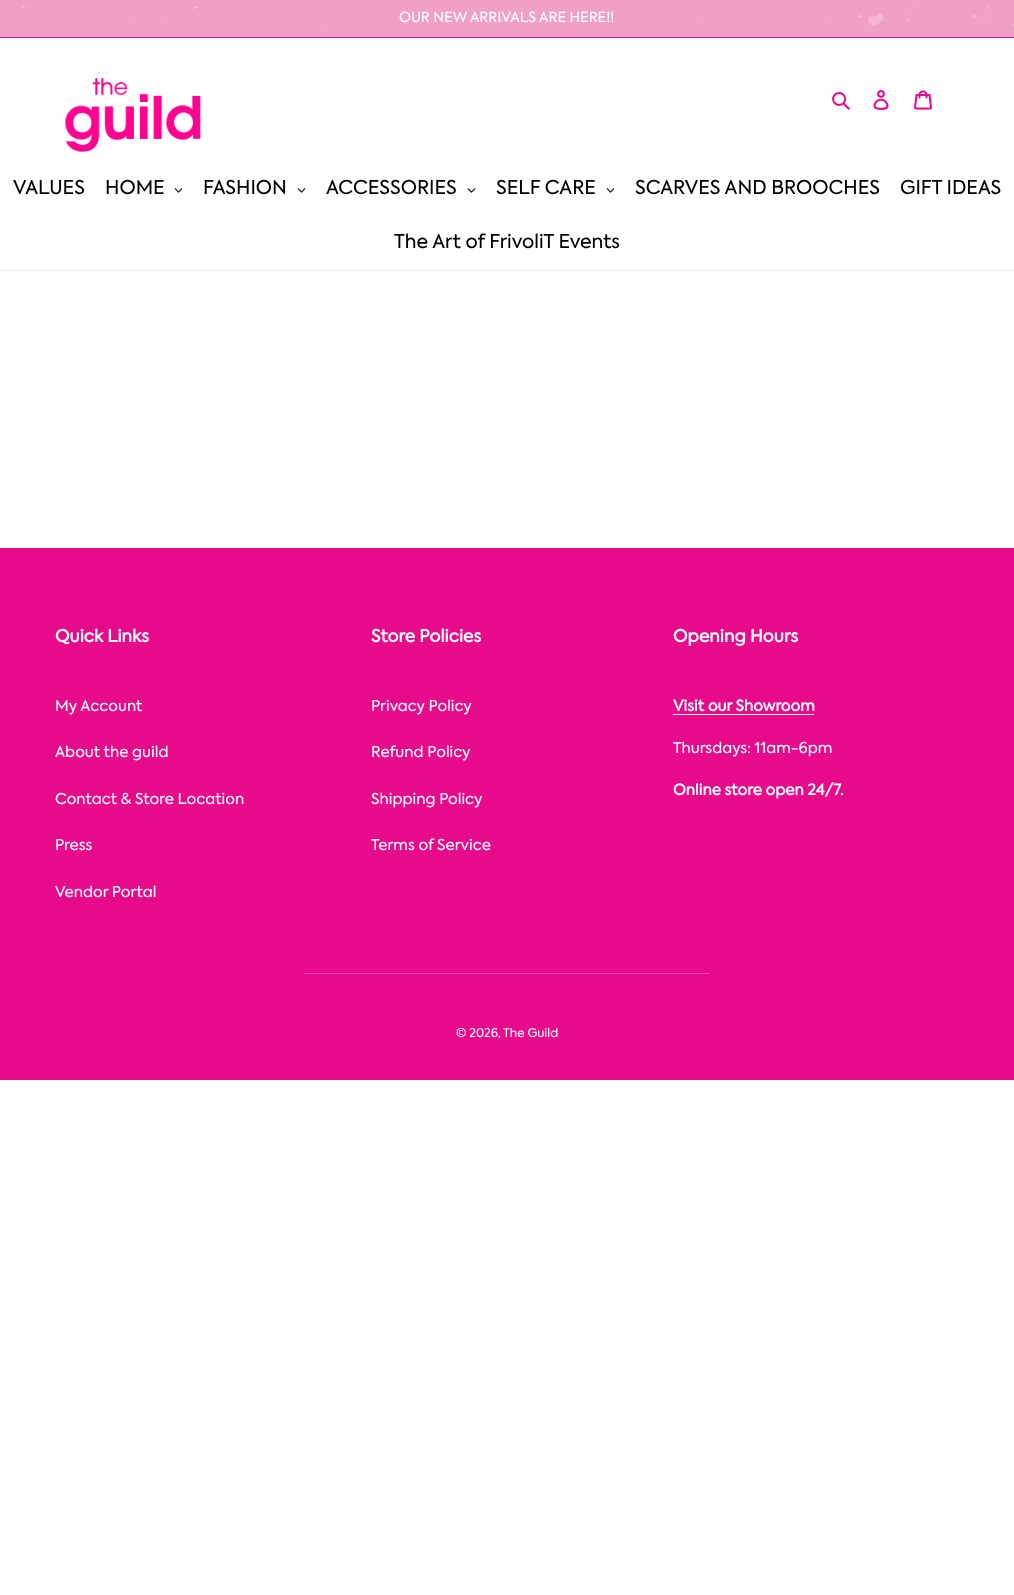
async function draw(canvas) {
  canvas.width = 1014
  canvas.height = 1595
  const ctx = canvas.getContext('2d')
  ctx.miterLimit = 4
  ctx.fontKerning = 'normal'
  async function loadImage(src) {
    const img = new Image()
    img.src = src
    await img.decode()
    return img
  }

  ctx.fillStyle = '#fff'
  ctx.fillRect(0, 0, 1014, 1595)
  ctx.fillStyle = '#e70a8b'
  ctx.fillRect(0, 37, 1014, 1)
  ctx.drawImage(await loadImage('image0.png'), 0, 0, 1014, 37)
  ctx.font = '14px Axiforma'
  ctx.fillStyle = '#fff'
  ctx.fillText('OUR NEW ARRIVALS ARE HERE!!', 399, 22)
  ctx.drawImage(await loadImage('image1.png'), 65, 78, 136, 74)
  ctx.drawImage(await loadImage('image2.png'), 832, 92, 18, 18)
  ctx.drawImage(await loadImage('image3.png'), 873, 90, 16, 20)
  ctx.drawImage(await loadImage('image4.png'), 914, 90, 18, 20)
  ctx.fillStyle = '#ebebeb'
  ctx.fillRect(0, 270, 1014, 1)
  ctx.font = '19px Axiforma'
  ctx.fillStyle = '#000'
  ctx.fillText('VALUES', 13, 194)
  ctx.fillText('HOME', 105, 194)
  ctx.drawImage(await loadImage('image5.png'), 174, 188, 9, 5)
  ctx.fillText('FASHION', 203, 194)
  ctx.drawImage(await loadImage('image5.png'), 297, 188, 9, 5)
  ctx.fillText('ACCESSORIES', 326, 194)
  ctx.drawImage(await loadImage('image5.png'), 467, 188, 9, 5)
  ctx.fillText('SELF CARE', 496, 194)
  ctx.drawImage(await loadImage('image5.png'), 606, 188, 9, 5)
  ctx.fillText('SCARVES AND BROOCHES', 635, 194)
  ctx.fillText('GIFT IDEAS', 900, 194)
  ctx.fillText('The Art of FrivoliT Events', 394, 248)
  ctx.fillStyle = '#e70a8b'
  ctx.fillRect(0, 548, 1014, 532)
  ctx.font = 'bold 17px Axiforma'
  ctx.fillStyle = '#fff'
  ctx.fillText('Quick Links', 55, 642)
  ctx.font = '15px Axiforma'
  ctx.fillText('My Account', 55, 711)
  ctx.fillText('About the guild', 55, 757)
  ctx.fillText('Contact & Store Location', 55, 804)
  ctx.fillText('Press', 55, 850)
  ctx.fillText('Vendor Portal', 55, 897)
  ctx.font = 'bold 17px Axiforma'
  ctx.fillText('Store Policies', 371, 642)
  ctx.font = '15px Axiforma'
  ctx.fillText('Privacy Policy', 371, 711)
  ctx.fillText('Refund Policy', 371, 757)
  ctx.fillText('Shipping Policy', 371, 804)
  ctx.fillText('Terms of Service', 371, 850)
  ctx.font = 'bold 17px Axiforma'
  ctx.fillText('Opening Hours', 673, 642)
  ctx.font = 'bold 15px Axiforma'
  ctx.fillText('Visit our Showroom', 673, 711)
  ctx.fillRect(673, 714, 141, 1)
  ctx.font = '15px Axiforma'
  ctx.fillText('Thursdays: 11am-6pm', 673, 753)
  ctx.font = 'bold 15px Axiforma'
  ctx.fillText('Online store open 24/7.', 673, 795)
  ctx.fillStyle = '#f746ae'
  ctx.fillRect(304, 973, 406, 1)
  ctx.font = '12px Axiforma'
  ctx.fillStyle = '#fff'
  ctx.fillText('© 2026,', 456, 1037)
  ctx.fillText('The Guild', 503, 1037)
}

draw(document.querySelector('canvas'))
